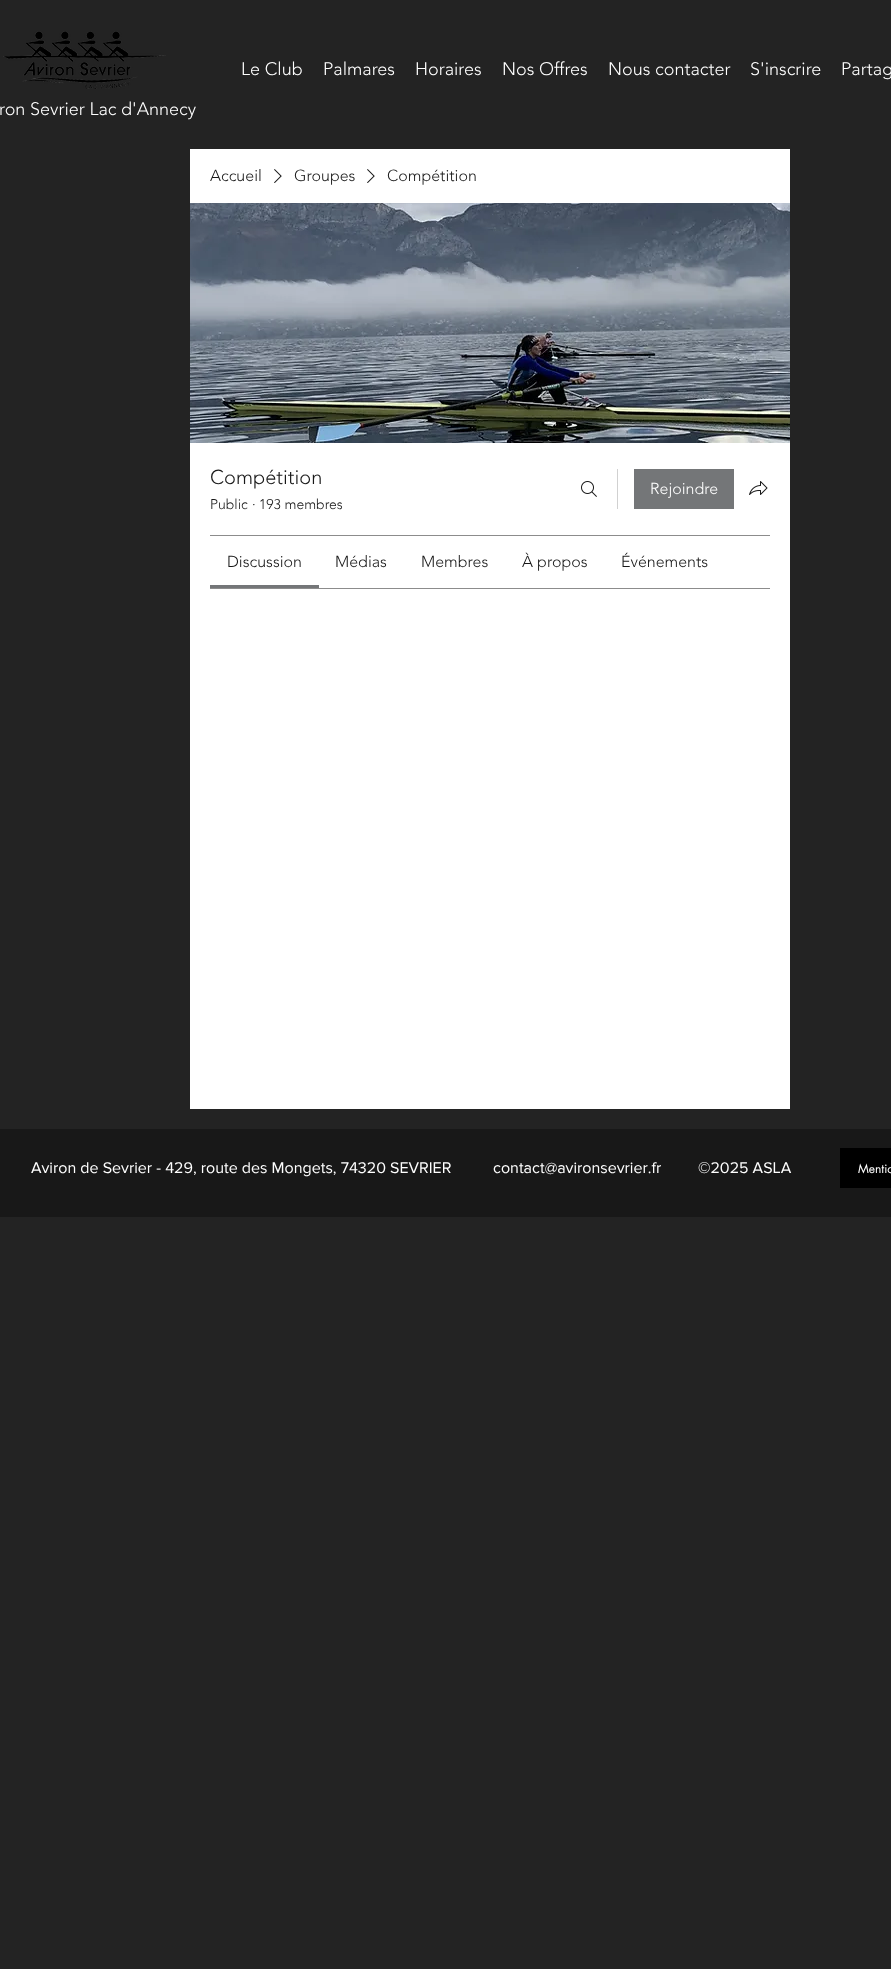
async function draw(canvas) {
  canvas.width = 891
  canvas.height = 1969
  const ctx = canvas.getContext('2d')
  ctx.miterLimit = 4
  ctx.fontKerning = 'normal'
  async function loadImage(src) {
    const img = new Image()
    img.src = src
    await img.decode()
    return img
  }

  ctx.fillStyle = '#232323'
  ctx.fillRect(0, 0, 891, 1969)
  ctx.font = '300 18px "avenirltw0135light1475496"'
  ctx.fillStyle = '#fff'
  ctx.fillText('Le Club', 241, 75)
  ctx.fillText('Palmares', 323, 75)
  ctx.fillText('Horaires', 415, 75)
  ctx.fillText('Nos Offres', 502, 75)
  ctx.fillText('Nous contacter', 608, 75)
  ctx.fillText('S\'inscrire', 750, 75)
  ctx.fillText('Partag', 841, 75)
  ctx.drawImage(await loadImage('image0.png'), 3, 31, 163, 58)
  ctx.fillText('ron Sevrier Lac d\'Annecy', -1, 115)
  ctx.fillRect(190, 149, 600, 960)
  ctx.font = '300 16px "avenirltw0135light1475496"'
  ctx.fillStyle = '#181818'
  ctx.fillText('Accueil', 210, 181)
  ctx.drawImage(await loadImage('image1.png'), 274, 169, 8, 14)
  ctx.fillText('Groupes', 294, 181)
  ctx.drawImage(await loadImage('image1.png'), 367, 169, 8, 14)
  ctx.fillText('Compétition', 387, 181)
  ctx.drawImage(await loadImage('image2.png'), 190, 203, 600, 240)
  ctx.font = '300 20px "avenirltw0135light1475496"'
  ctx.fillText('Compétition', 210, 484)
  ctx.font = '300 14px "avenirltw0135light1475496"'
  ctx.fillText('Public', 210, 509)
  ctx.fillText('·', 252, 509)
  ctx.fillText('193 membres', 259, 509)
  ctx.drawImage(await loadImage('image3.png'), 581, 481, 16, 16)
  ctx.fillStyle = '#d1d1d1'
  ctx.fillRect(617, 469, 1, 40)
  ctx.fillStyle = '#747678'
  ctx.fillRect(634, 469, 100, 40)
  ctx.font = '300 16px "avenirltw0135light1475496"'
  ctx.fillStyle = '#fff'
  ctx.fillText('Rejoindre', 650, 494)
  ctx.drawImage(await loadImage('image4.png'), 749, 481, 19, 14)
  ctx.fillStyle = '#8c8c8c'
  ctx.fillRect(210, 535, 560, 1)
  ctx.fillRect(210, 588, 560, 1)
  ctx.fillStyle = '#747678'
  ctx.fillRect(210, 585, 109, 3)
  ctx.fillStyle = '#181818'
  ctx.fillText('Discussion', 227, 567)
  ctx.fillText('Médias', 335, 567)
  ctx.fillText('Membres', 421, 567)
  ctx.fillText('À propos', 522, 567)
  ctx.fillText('Événements', 621, 567)
  ctx.fillRect(0, 1129, 891, 88)
  ctx.font = '16px "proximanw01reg"'
  ctx.fillStyle = '#fff'
  ctx.fillText('Aviron de Sevrier - 429, route des Mongets, 74320 SEVRIER', 31, 1173)
  ctx.fillText('contact@avironsevrier.fr', 493, 1173)
  ctx.fillText('©2025 ASLA', 698, 1173)
  ctx.fillStyle = '#000'
  ctx.fillRect(840, 1148, 51, 40)
  ctx.font = '12px futura'
  ctx.fillStyle = '#fff'
  ctx.fillText('Mentio', 858, 1173)
}

draw(document.querySelector('canvas'))
